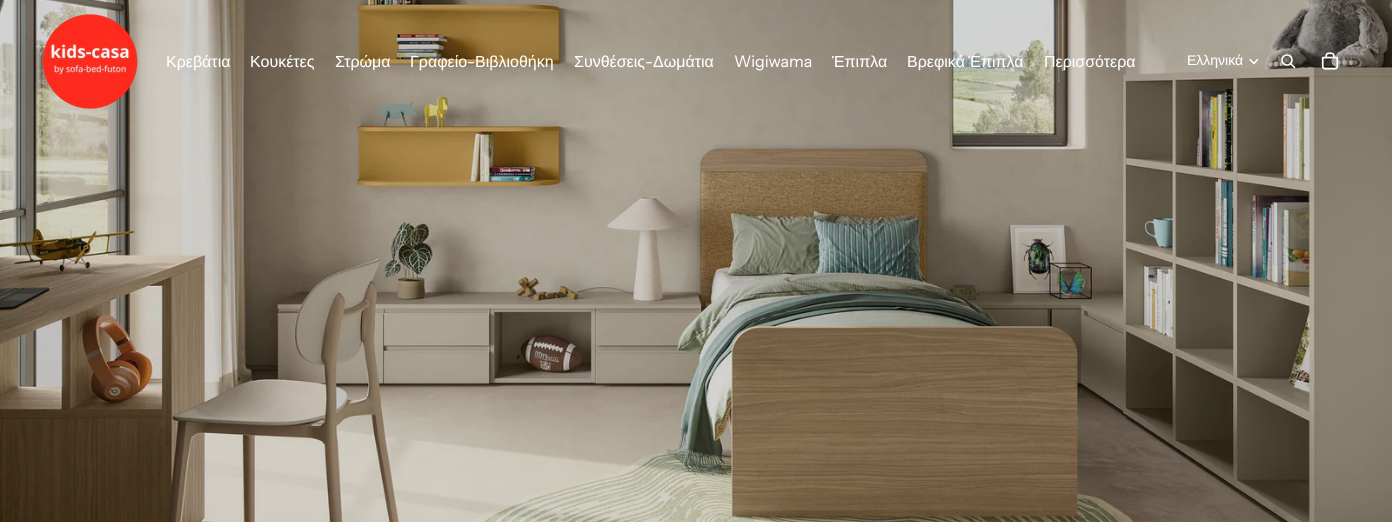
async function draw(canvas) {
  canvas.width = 1392
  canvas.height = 522
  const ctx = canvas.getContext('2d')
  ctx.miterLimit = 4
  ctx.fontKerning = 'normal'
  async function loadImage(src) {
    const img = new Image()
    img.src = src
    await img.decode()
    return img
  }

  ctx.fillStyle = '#fff'
  ctx.fillRect(0, 0, 1392, 522)
  ctx.drawImage(await loadImage('image0.png'), 0, 0, 1392, 522)
  ctx.drawImage(await loadImage('image1.png'), 42, 14, 96, 95)
  ctx.font = '16px Liberation Sans'
  ctx.fillText('Κρεβάτια', 166, 67)
  ctx.fillText('Κουκέτες', 250, 67)
  ctx.fillText('Στρώμα', 335, 67)
  ctx.fillText('Γραφείο', 410, 67)
  ctx.font = '16px Instrument Sans'
  ctx.fillText('-', 467, 67)
  ctx.font = '16px Liberation Sans'
  ctx.fillText('Βιβλιοθήκη', 475, 67)
  ctx.fillText('Συνθέσεις', 574, 67)
  ctx.font = '16px Instrument Sans'
  ctx.fillText('-', 645, 67)
  ctx.font = '16px Liberation Sans'
  ctx.fillText('Δωμάτια', 653, 67)
  ctx.font = '16px Instrument Sans'
  ctx.fillText('Wigiwama', 734, 67)
  ctx.font = '16px Liberation Sans'
  ctx.fillText('Έπιπλα', 832, 67)
  ctx.wordSpacing = '-1px'
  ctx.fillText('Βρεφικά Έπιπλα', 907, 67)
  ctx.wordSpacing = '0px'
  ctx.fillText('Περισσότερα', 1044, 67)
  ctx.font = '14px Liberation Sans'
  ctx.fillText('Ελληνικά', 1187, 65)
  ctx.beginPath()
  ctx.moveTo(1257.5, 59.5)
  ctx.lineTo(1254, 63.5)
  ctx.lineTo(1250, 59.5)
  ctx.strokeStyle = '#fff'
  ctx.lineWidth = 1.5
  ctx.lineCap = 'round'
  ctx.lineJoin = 'round'
  ctx.stroke()
  ctx.beginPath()
  ctx.arc(1287, 60, 5, 0, 2 * Math.PI)
  ctx.lineWidth = 1.7
  ctx.stroke()
  ctx.beginPath()
  ctx.moveTo(1291, 64)
  ctx.lineTo(1294.5, 67.5)
  ctx.stroke()
  ctx.drawImage(await loadImage('image2.png'), 1321, 52, 18, 18)
}

draw(document.querySelector('canvas'))
